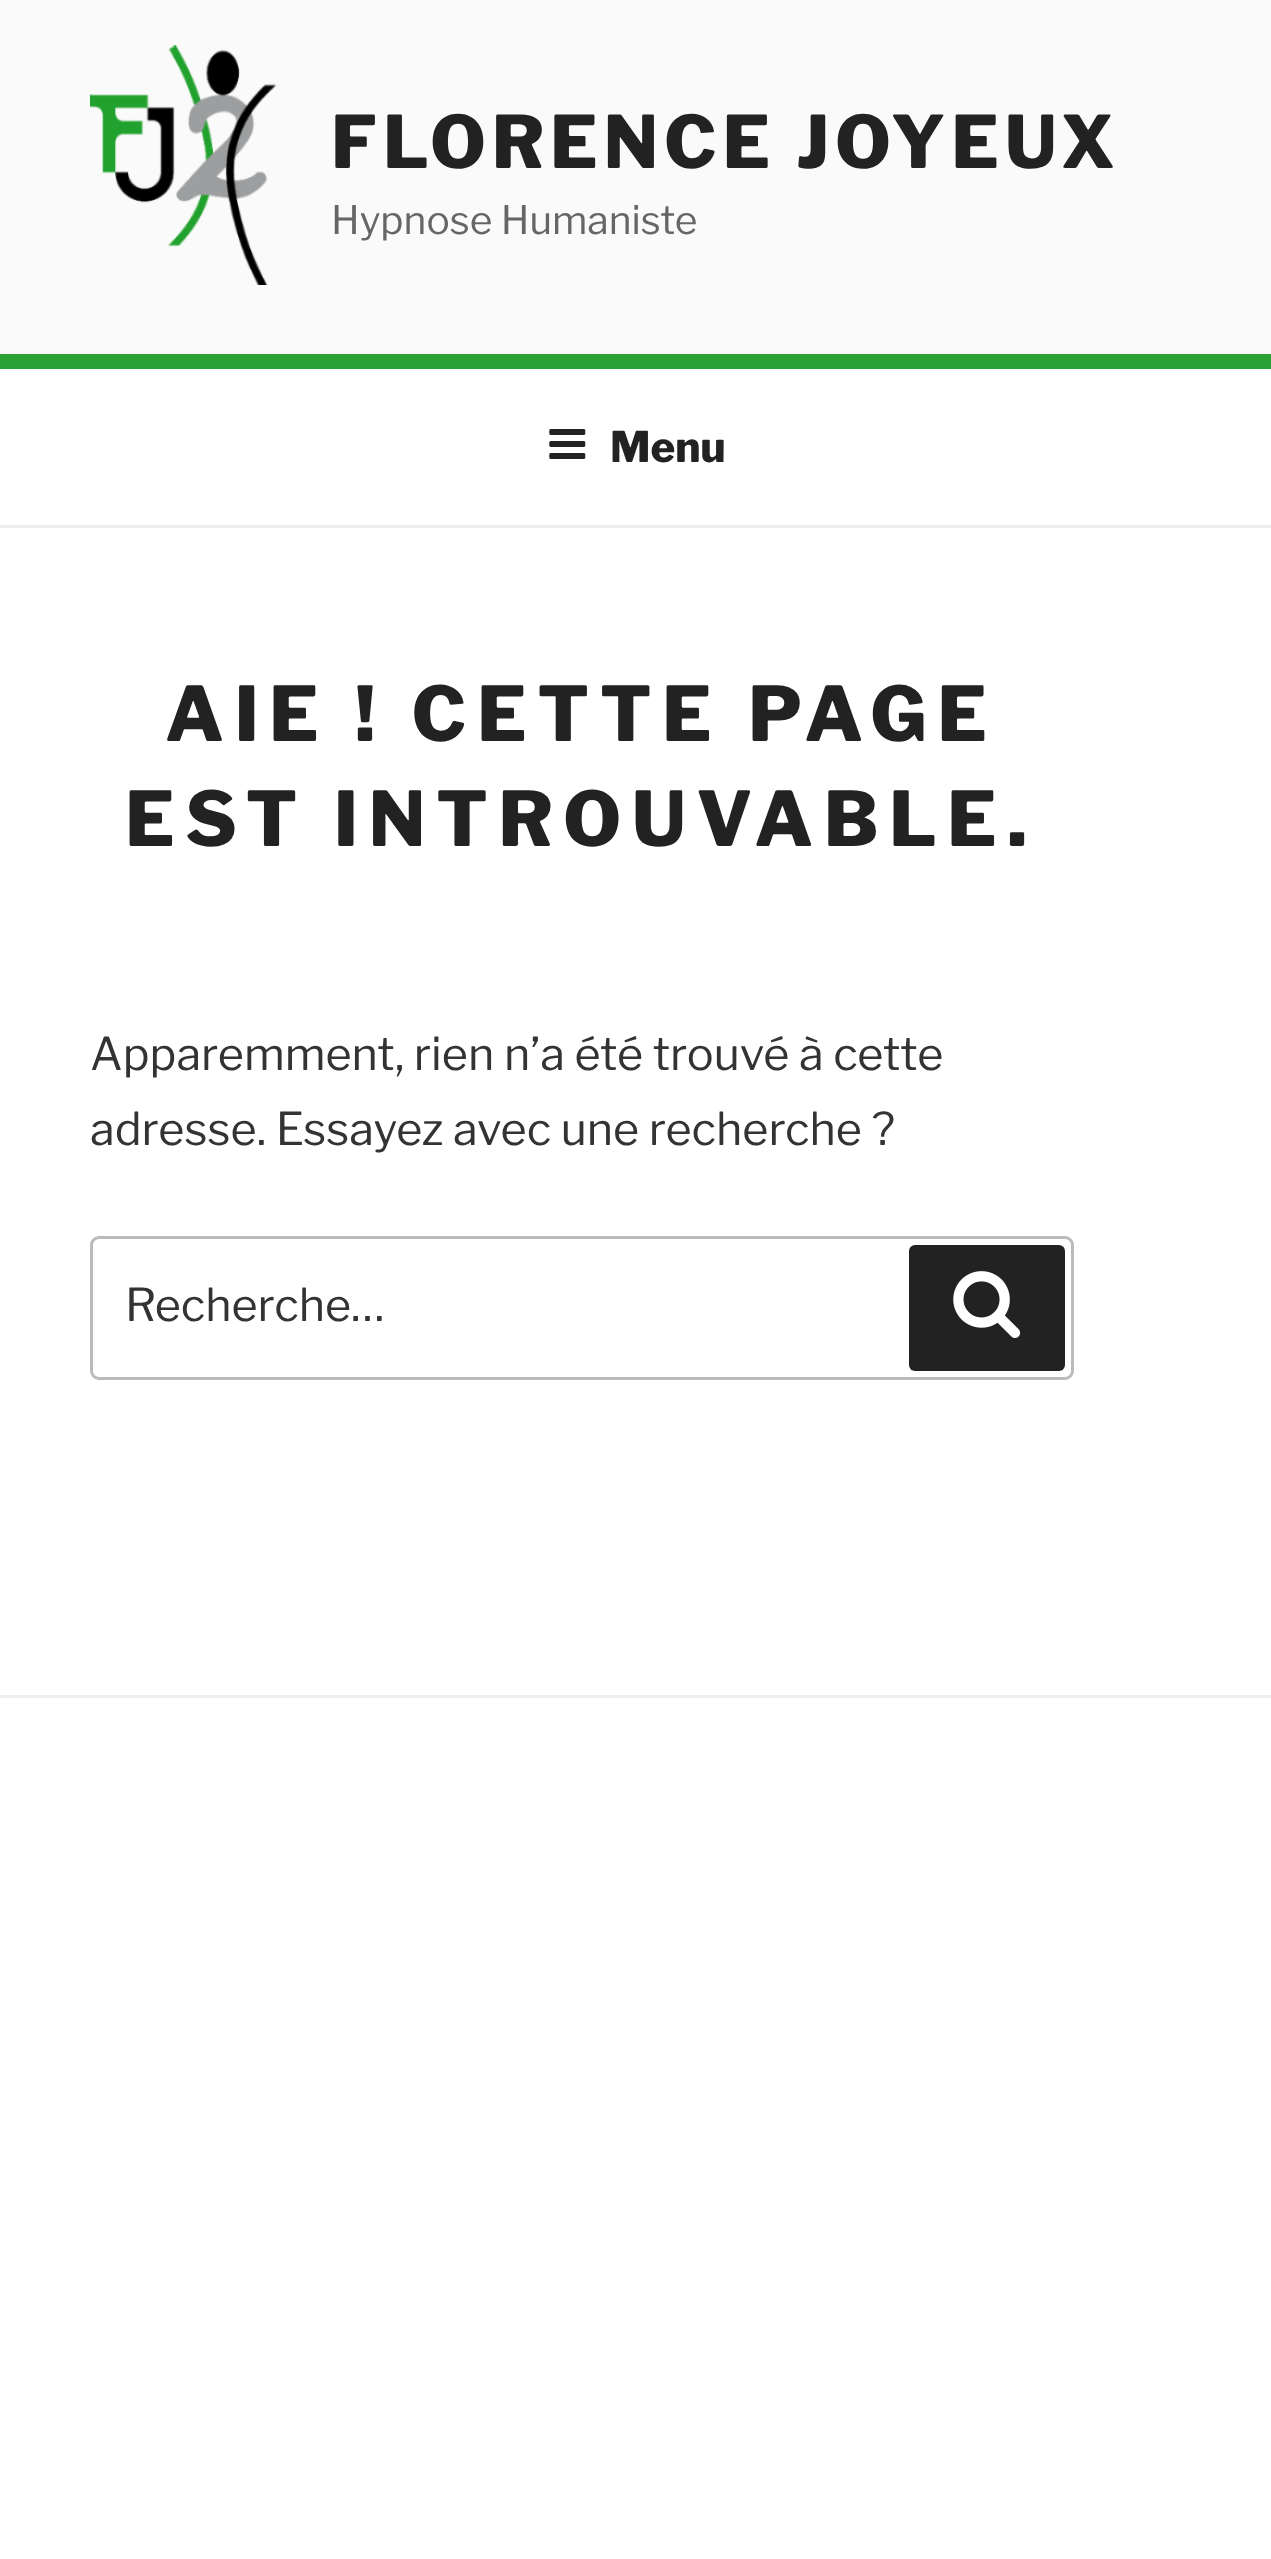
async function draw(canvas) {
  canvas.width = 1271
  canvas.height = 2559
  const ctx = canvas.getContext('2d')
  ctx.miterLimit = 4
  ctx.fontKerning = 'normal'
  async function loadImage(src) {
    const img = new Image()
    img.src = src
    await img.decode()
    return img
  }

  ctx.fillStyle = '#fff'
  ctx.fillRect(0, 0, 1271, 2559)
  ctx.fillStyle = '#fafafa'
  ctx.fillRect(0, 0, 1271, 354)
  ctx.drawImage(await loadImage('image0.png'), 90, 45, 186, 240)
  ctx.letterSpacing = '5.75px'
  ctx.font = '800 72px Libre Franklin'
  ctx.fillStyle = '#222'
  ctx.fillText('FLORENCE JOYEUX', 331, 168)
  ctx.letterSpacing = '0px'
  ctx.font = '39px Libre Franklin'
  ctx.fillStyle = '#666'
  ctx.fillText('Hypnose Humaniste', 331, 234)
  ctx.fillStyle = '#2aa035'
  ctx.fillRect(0, 354, 1271, 15)
  ctx.fillStyle = '#eee'
  ctx.fillRect(0, 525, 1271, 3)
  ctx.drawImage(await loadImage('image1.png'), 549, 429, 37, 30)
  ctx.font = '800 42px Libre Franklin'
  ctx.fillStyle = '#222'
  ctx.fillText('Menu', 610, 462)
  ctx.letterSpacing = '10.5px'
  ctx.font = '800 75px Libre Franklin'
  ctx.fillText('AIE ! CETTE PAGE', 165, 741)
  ctx.fillText('EST INTROUVABLE.', 125, 846)
  ctx.letterSpacing = '0px'
  ctx.font = '45px Libre Franklin'
  ctx.fillStyle = '#333'
  ctx.fillText('Apparemment, rien n’a été trouvé à cette', 90, 1070)
  ctx.fillText('adresse. Essayez avec une recherche ?', 90, 1145)
  ctx.beginPath()
  ctx.roundRect(91.5, 1237.5, 981, 141, 7.5)
  ctx.strokeStyle = '#bbb'
  ctx.lineWidth = 3
  ctx.stroke()
  ctx.fillText('Recherche…', 125, 1321)
  ctx.fillStyle = '#222'
  ctx.beginPath()
  ctx.roundRect(909, 1245, 156, 126, 6)
  ctx.fill()
  ctx.drawImage(await loadImage('image2.png'), 953, 1271, 68, 67)
  ctx.fillStyle = '#eee'
  ctx.fillRect(0, 1695, 1271, 3)
}

draw(document.querySelector('canvas'))
